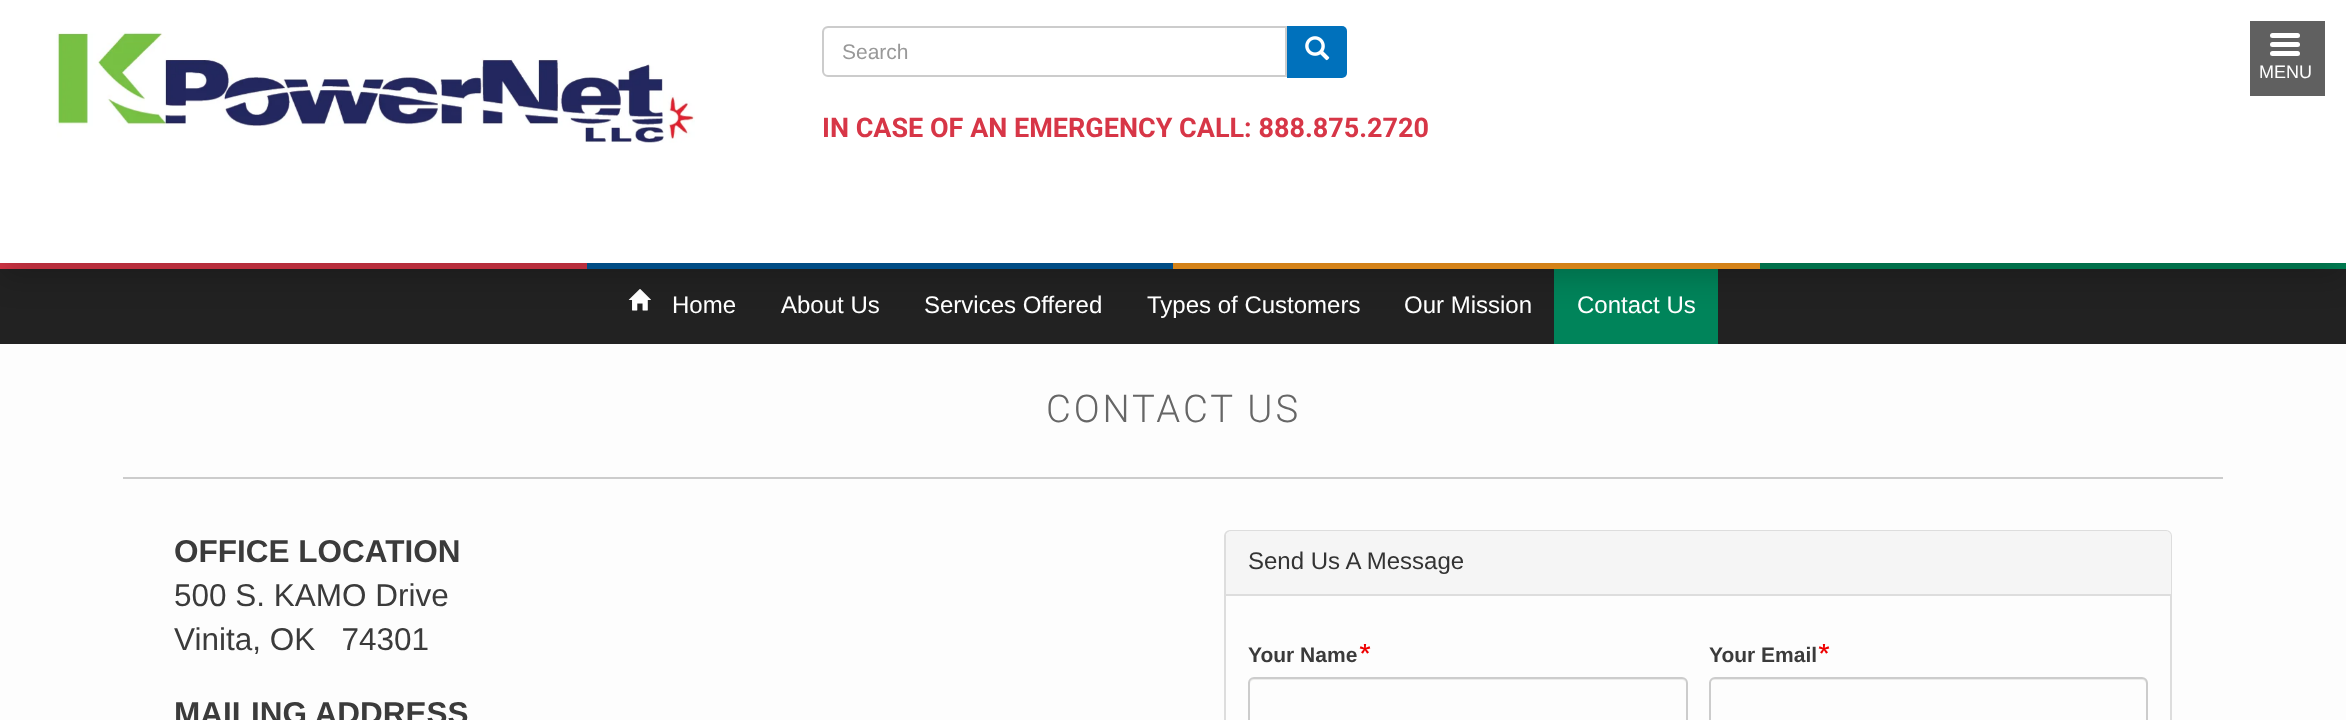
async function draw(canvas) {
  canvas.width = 2346
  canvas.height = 720
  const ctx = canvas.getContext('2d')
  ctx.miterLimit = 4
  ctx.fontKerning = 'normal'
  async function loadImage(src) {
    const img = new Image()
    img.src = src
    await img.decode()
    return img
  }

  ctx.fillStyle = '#fdfdfd'
  ctx.fillRect(0, 0, 2346, 720)
  ctx.fillStyle = '#d73647'
  ctx.fillRect(0, 263, 587, 6)
  ctx.fillStyle = '#005a9c'
  ctx.fillRect(587, 263, 586, 6)
  ctx.fillStyle = '#f8991d'
  ctx.fillRect(1173, 263, 587, 6)
  ctx.fillStyle = '#008457'
  ctx.fillRect(1760, 263, 586, 6)
  ctx.fillStyle = '#222'
  ctx.fillRect(0, 269, 2346, 75)
  ctx.drawImage(await loadImage('image2.png'), 628, 289, 23, 22)
  ctx.fillStyle = '#00845a'
  ctx.fillRect(1554, 269, 164, 75)
  ctx.fillStyle = '#0000002e'
  ctx.filter = 'blur(15px)'
  ctx.beginPath()
  ctx.rect(0, 15, 2346, 263)
  ctx.fill()
  ctx.filter = 'none'
  ctx.fillStyle = '#fff'
  ctx.fillRect(0, 0, 2346, 263)
  ctx.drawImage(await loadImage('image0.png'), 56, 32, 639, 111)
  ctx.fillStyle = '#ececec'
  ctx.beginPath()
  ctx.moveTo(828, 28)
  ctx.lineTo(1286, 28)
  ctx.lineTo(1286, 27)
  ctx.lineTo(829, 27)
  ctx.bezierCurveTo(826, 27, 824, 30, 824, 33)
  ctx.bezierCurveTo(824, 31, 826, 28, 828, 28)
  ctx.closePath()
  ctx.fill()
  ctx.beginPath()
  ctx.roundRect(823, 27, 463, 49, [5, 0, 0, 5])
  ctx.strokeStyle = '#ccc'
  ctx.lineWidth = 2
  ctx.stroke()
  ctx.font = '21px Liberation Sans'
  ctx.fillStyle = '#999'
  ctx.fillText('Search', 842, 59)
  ctx.fillStyle = '#0071bc'
  ctx.beginPath()
  ctx.roundRect(1287, 26, 60, 52, [0, 5, 5, 0])
  ctx.fill()
  ctx.drawImage(await loadImage('image1.png'), 1305, 36, 25, 25)
  ctx.font = 'bold 27px Roboto'
  ctx.fillStyle = '#d73647'
  ctx.fillText('IN CASE OF AN EMERGENCY CALL: 888.875.2720', 822, 137)
  ctx.fillStyle = '#606060'
  ctx.fillRect(2250, 21, 75, 75)
  ctx.fillStyle = '#fff'
  ctx.beginPath()
  ctx.roundRect(2270, 33, 30, 5, 2.5)
  ctx.fill()
  ctx.beginPath()
  ctx.roundRect(2270, 42, 30, 5, 2.5)
  ctx.fill()
  ctx.beginPath()
  ctx.roundRect(2270, 51, 30, 5, 2.5)
  ctx.fill()
  ctx.font = '18px Liberation Sans'
  ctx.fillText('MENU', 2259, 78)
  ctx.font = '24px Liberation Sans'
  ctx.fillText('Home', 672, 313)
  ctx.fillText('About Us', 781, 313)
  ctx.fillText('Services Offered', 924, 313)
  ctx.fillText('Types of Customers', 1147, 313)
  ctx.fillText('Our Mission', 1404, 313)
  ctx.fillText('Contact Us', 1577, 313)
  ctx.fillStyle = '#ccc'
  ctx.fillRect(123, 477, 2100, 2)
  ctx.letterSpacing = '2.9px'
  ctx.font = '300 38.25px Roboto'
  ctx.fillStyle = '#666'
  ctx.fillText('CONTACT US', 1046, 422)
  ctx.letterSpacing = '0px'
  ctx.font = 'bold 31.5px Liberation Sans'
  ctx.fillStyle = '#3b3b3b'
  ctx.fillText('OFFICE LOCATION', 174, 562)
  ctx.font = '31.5px Liberation Sans'
  ctx.fillText('500 S. KAMO Drive', 174, 606)
  ctx.fillText('Vinita, OK   74301', 174, 650)
  ctx.font = 'bold 31.5px Liberation Sans'
  ctx.fillText('MAILING ADDRESS', 174, 724)
  ctx.beginPath()
  ctx.roundRect(1225, 531, 946, 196, 5)
  ctx.strokeStyle = '#ddd'
  ctx.stroke()
  ctx.fillStyle = '#f5f5f5'
  ctx.beginPath()
  ctx.roundRect(1226, 531, 945, 65, [5, 5, 0, 0])
  ctx.fill()
  ctx.fillStyle = '#ddd'
  ctx.fillRect(1226, 594, 945, 2)
  ctx.font = '24px Liberation Sans'
  ctx.fillStyle = '#333'
  ctx.fillText('Send Us A Message', 1248, 569)
  ctx.font = 'bold 21px Liberation Sans'
  ctx.fillStyle = '#3b3b3b'
  ctx.fillText('Your Name', 1248, 662)
  ctx.drawImage(await loadImage('image3.png'), 1359, 644, 12, 10)
  ctx.fillStyle = '#ececeb'
  ctx.beginPath()
  ctx.moveTo(1254, 680)
  ctx.lineTo(1682, 680)
  ctx.bezierCurveTo(1684, 680, 1686, 682, 1686, 684)
  ctx.bezierCurveTo(1686, 681, 1684, 678, 1681, 678)
  ctx.lineTo(1255, 678)
  ctx.bezierCurveTo(1252, 678, 1250, 681, 1250, 684)
  ctx.bezierCurveTo(1250, 682, 1252, 680, 1254, 680)
  ctx.closePath()
  ctx.fill()
  ctx.beginPath()
  ctx.roundRect(1249, 678, 438, 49, 5)
  ctx.strokeStyle = '#ccc'
  ctx.stroke()
  ctx.fillStyle = '#3b3b3b'
  ctx.fillText('Your Email', 1709, 662)
  ctx.drawImage(await loadImage('image3.png'), 1818, 644, 12, 10)
  ctx.fillStyle = '#ececeb'
  ctx.beginPath()
  ctx.moveTo(1714, 680)
  ctx.lineTo(2142, 680)
  ctx.bezierCurveTo(2144, 680, 2146, 682, 2146, 684)
  ctx.lineTo(2146, 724)
  ctx.bezierCurveTo(2147, 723, 2147, 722, 2147, 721)
  ctx.lineTo(2147, 683)
  ctx.bezierCurveTo(2147, 680, 2145, 678, 2142, 678)
  ctx.lineTo(1715, 678)
  ctx.bezierCurveTo(1712, 678, 1710, 680, 1710, 683)
  ctx.lineTo(1710, 684)
  ctx.bezierCurveTo(1710, 682, 1712, 680, 1714, 680)
  ctx.closePath()
  ctx.fill()
  ctx.beginPath()
  ctx.roundRect(1710, 678, 437, 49, 5)
  ctx.stroke()
}

draw(document.querySelector('canvas'))
